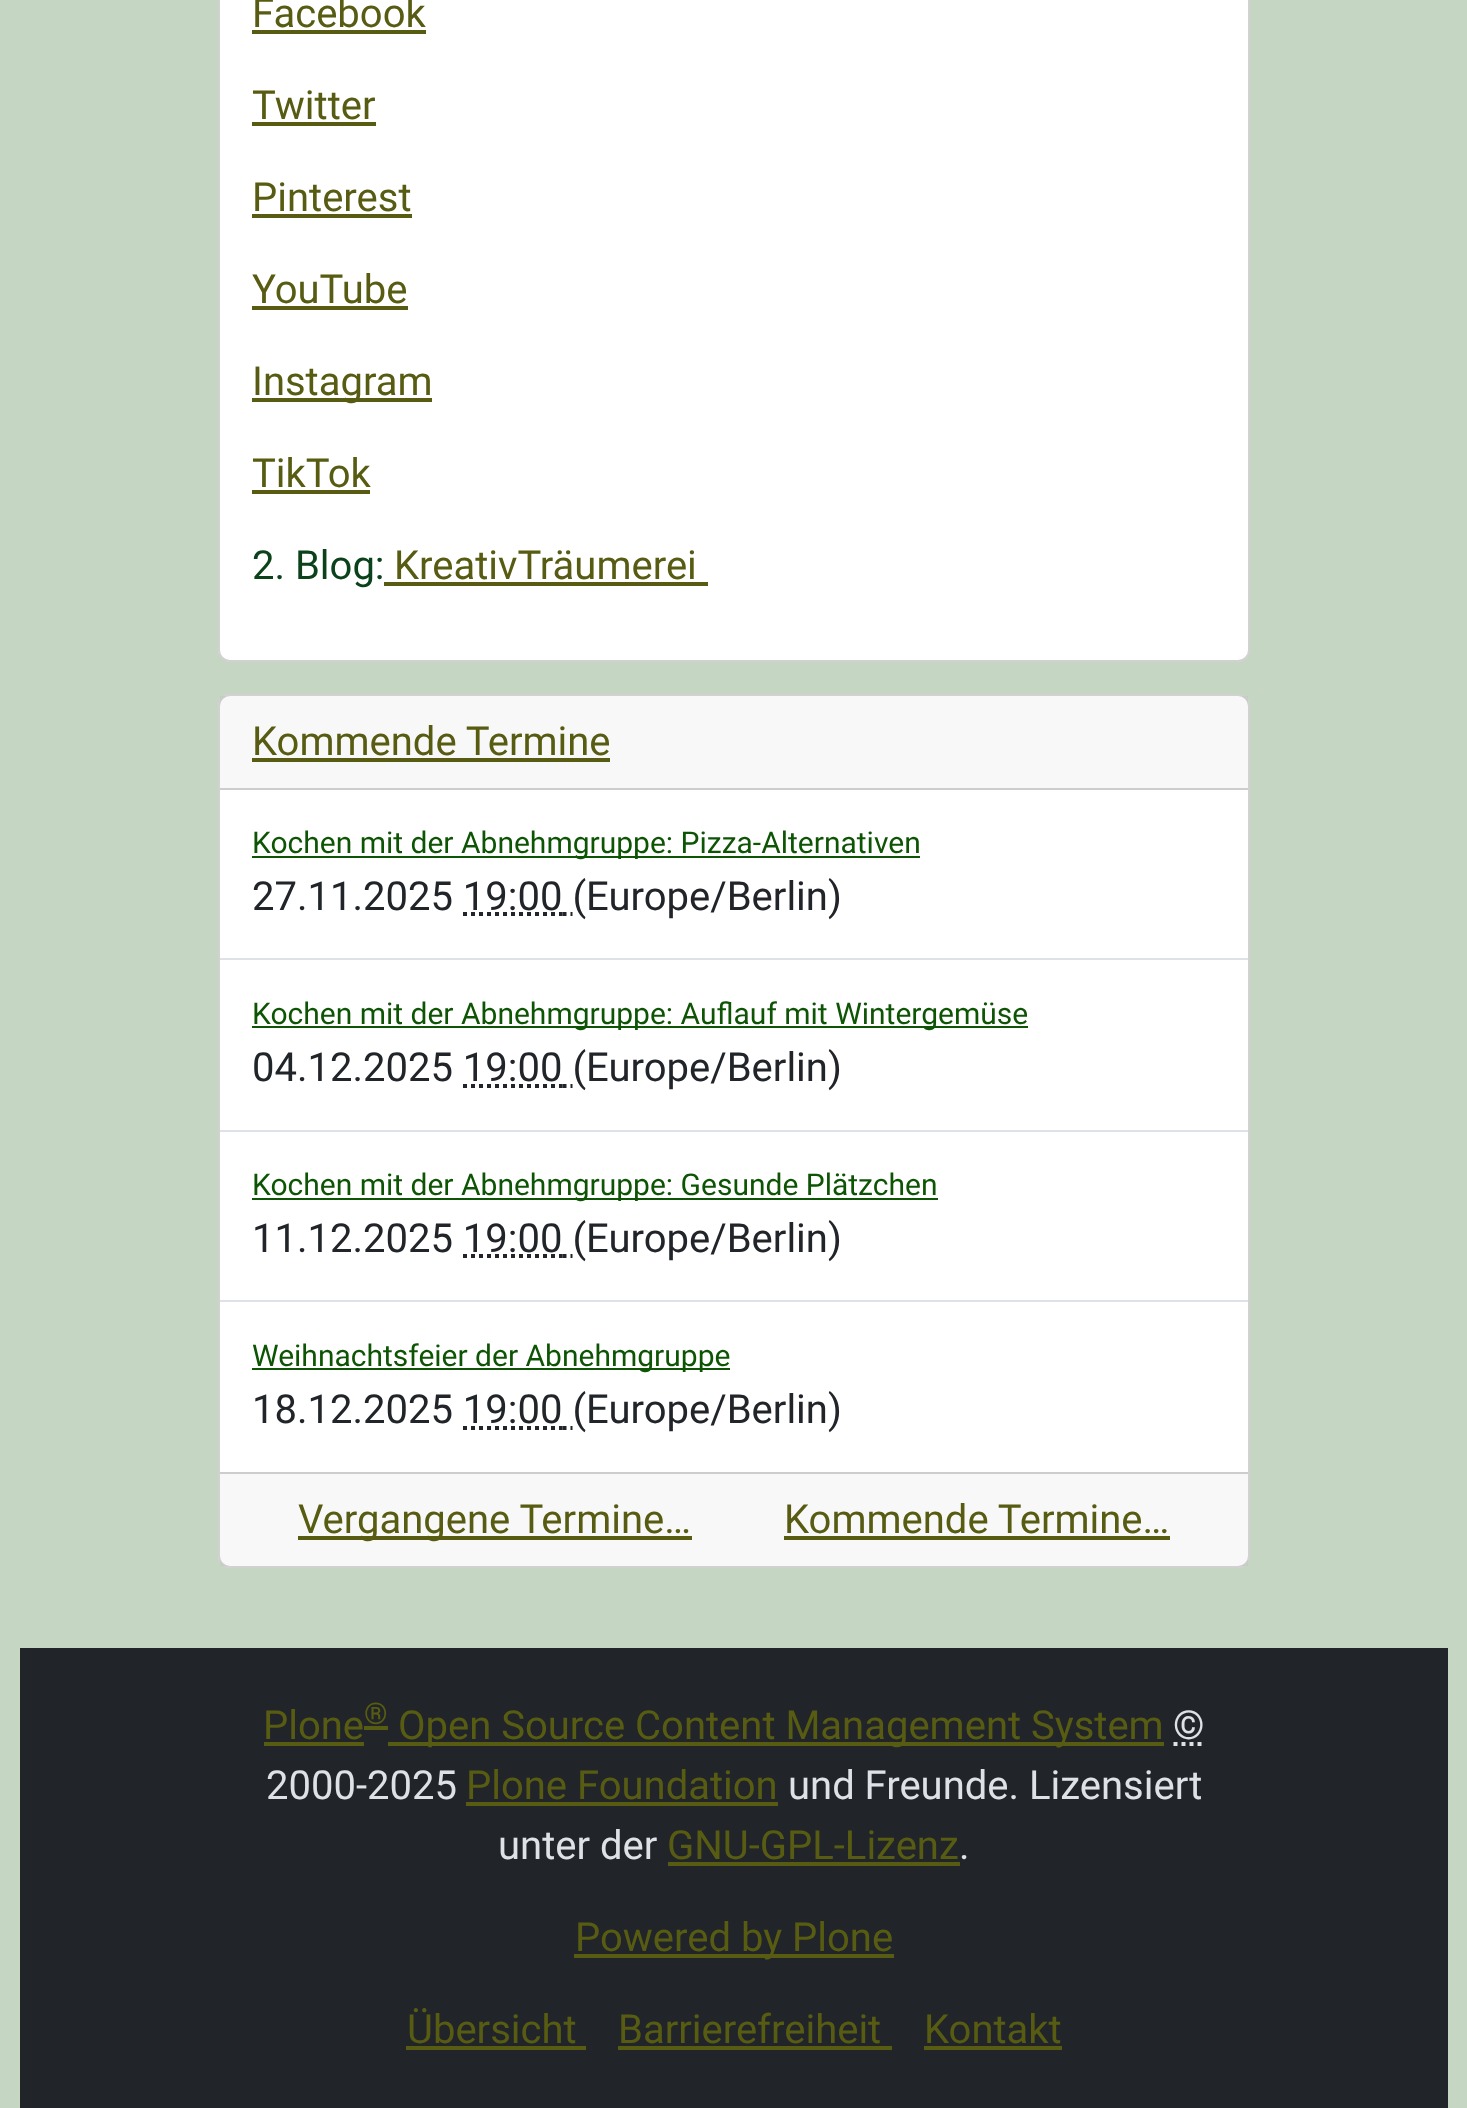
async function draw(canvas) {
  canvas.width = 1467
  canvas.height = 2108
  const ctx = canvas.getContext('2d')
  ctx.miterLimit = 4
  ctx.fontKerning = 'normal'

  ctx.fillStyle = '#c5d6c2'
  ctx.fillRect(0, 0, 1467, 2108)
  ctx.fillStyle = '#fff'
  ctx.beginPath()
  ctx.roundRect(218, -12, 1032, 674, 12)
  ctx.fill()
  ctx.beginPath()
  ctx.roundRect(219, -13, 1030, 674, 11)
  ctx.strokeStyle = '#0000002e'
  ctx.lineWidth = 2
  ctx.stroke()
  ctx.font = '40px Roboto'
  ctx.fillStyle = '#585c12'
  ctx.fillText('Facebook', 252, 27)
  ctx.fillRect(252, 30, 174, 4)
  ctx.fillText('Twitter', 252, 119)
  ctx.fillRect(252, 122, 124, 4)
  ctx.fillText('Pinterest', 252, 211)
  ctx.fillRect(252, 214, 160, 4)
  ctx.fillText('YouTube', 252, 303)
  ctx.fillRect(252, 306, 156, 4)
  ctx.fillRect(252, 398, 180, 4)
  ctx.fillText('Instagram', 252, 395)
  ctx.fillText('TikTok', 252, 487)
  ctx.fillRect(252, 490, 118, 4)
  ctx.fillStyle = '#0b421b'
  ctx.fillText('2. Blog:', 252, 579)
  ctx.fillStyle = '#585c12'
  ctx.fillText('KreativTräumerei', 394, 579)
  ctx.fillRect(384, 582, 324, 4)
  ctx.fillStyle = '#fff'
  ctx.beginPath()
  ctx.roundRect(218, 694, 1032, 874, 12)
  ctx.fill()
  ctx.beginPath()
  ctx.roundRect(219, 695, 1030, 872, 11)
  ctx.stroke()
  ctx.fillStyle = '#21252908'
  ctx.fillRect(220, 696, 1028, 92)
  ctx.fillStyle = '#cdcdcd'
  ctx.fillRect(220, 788, 1028, 2)
  ctx.fillStyle = '#585c12'
  ctx.fillText('Kommende Termine', 252, 755)
  ctx.fillRect(252, 758, 358, 4)
  ctx.fillStyle = '#0d5404'
  ctx.fillRect(252, 856, 668, 2)
  ctx.font = '30px Roboto'
  ctx.fillText('Kochen mit der Abnehmgruppe: Pizza-Alternativen', 252, 853)
  ctx.font = '40px Roboto'
  ctx.fillStyle = '#212529'
  ctx.fillText('27.11.2025 19:00 (Europe/Berlin)', 252, 910)
  ctx.beginPath()
  ctx.moveTo(463, 914)
  ctx.lineTo(562.5, 914)
  ctx.strokeStyle = '#212529'
  ctx.lineWidth = 4
  ctx.setLineDash([4, 4])
  ctx.stroke()
  ctx.beginPath()
  ctx.moveTo(562.5, 914)
  ctx.lineTo(566.5, 914)
  ctx.moveTo(570.5, 914)
  ctx.lineTo(572.5, 914)
  ctx.setLineDash([])
  ctx.stroke()
  ctx.fillStyle = '#dee2e6'
  ctx.fillRect(220, 958, 1028, 2)
  ctx.fillStyle = '#0d5404'
  ctx.fillRect(252, 1026, 776, 2)
  ctx.font = '30px Roboto'
  ctx.fillText('Kochen mit der Abnehmgruppe: Auflauf mit Wintergemüse', 252, 1024)
  ctx.font = '40px Roboto'
  ctx.fillStyle = '#212529'
  ctx.fillText('04.12.2025 19:00 (Europe/Berlin)', 252, 1081)
  ctx.beginPath()
  ctx.moveTo(463, 1086)
  ctx.lineTo(562.5, 1086)
  ctx.setLineDash([4, 4])
  ctx.stroke()
  ctx.beginPath()
  ctx.moveTo(562.5, 1086)
  ctx.lineTo(566.5, 1086)
  ctx.moveTo(570.5, 1086)
  ctx.lineTo(572.5, 1086)
  ctx.setLineDash([])
  ctx.stroke()
  ctx.fillStyle = '#dee2e6'
  ctx.fillRect(220, 1130, 1028, 2)
  ctx.fillStyle = '#0d5404'
  ctx.fillRect(252, 1198, 686, 2)
  ctx.font = '30px Roboto'
  ctx.fillText('Kochen mit der Abnehmgruppe: Gesunde Plätzchen', 252, 1195)
  ctx.font = '40px Roboto'
  ctx.fillStyle = '#212529'
  ctx.fillText('11.12.2025 19:00 (Europe/Berlin)', 252, 1252)
  ctx.beginPath()
  ctx.moveTo(463, 1256)
  ctx.lineTo(562.5, 1256)
  ctx.setLineDash([4, 4])
  ctx.stroke()
  ctx.beginPath()
  ctx.moveTo(562.5, 1256)
  ctx.lineTo(566.5, 1256)
  ctx.moveTo(570.5, 1256)
  ctx.lineTo(572.5, 1256)
  ctx.setLineDash([])
  ctx.stroke()
  ctx.fillStyle = '#dee2e6'
  ctx.fillRect(220, 1300, 1028, 2)
  ctx.fillStyle = '#0d5404'
  ctx.fillRect(252, 1368, 478, 2)
  ctx.font = '30px Roboto'
  ctx.fillText('Weihnachtsfeier der Abnehmgruppe', 252, 1366)
  ctx.font = '40px Roboto'
  ctx.fillStyle = '#212529'
  ctx.fillText('18.12.2025 19:00 (Europe/Berlin)', 252, 1423)
  ctx.beginPath()
  ctx.moveTo(463, 1428)
  ctx.lineTo(562.5, 1428)
  ctx.setLineDash([4, 4])
  ctx.stroke()
  ctx.beginPath()
  ctx.moveTo(562.5, 1428)
  ctx.lineTo(566.5, 1428)
  ctx.moveTo(570.5, 1428)
  ctx.lineTo(572.5, 1428)
  ctx.setLineDash([])
  ctx.stroke()
  ctx.fillStyle = '#21252908'
  ctx.fillRect(220, 1474, 1028, 92)
  ctx.fillStyle = '#cdcdcd'
  ctx.fillRect(220, 1472, 1028, 2)
  ctx.fillStyle = '#585c12'
  ctx.fillRect(298, 1536, 394, 4)
  ctx.fillText('Vergangene Termine…', 298, 1533)
  ctx.fillText('Kommende Termine…', 784, 1533)
  ctx.fillRect(784, 1536, 386, 4)
  ctx.fillStyle = '#212529'
  ctx.fillRect(20, 1648, 1428, 460)
  ctx.fillStyle = '#585c12'
  ctx.fillText('Plone', 263, 1739)
  ctx.fillRect(264, 1742, 100, 4)
  ctx.fillRect(364, 1726, 24, 4)
  ctx.font = '30px Roboto'
  ctx.fillText('®', 364, 1724)
  ctx.fillRect(388, 1742, 776, 4)
  ctx.font = '40px Roboto'
  ctx.fillText('Open Source Content Management System', 398, 1739)
  ctx.fillStyle = '#dee2e6'
  ctx.fillText('©', 1173, 1739)
  ctx.beginPath()
  ctx.moveTo(1173.5, 1744)
  ctx.lineTo(1205, 1744)
  ctx.strokeStyle = '#dee2e6'
  ctx.setLineDash([4, 4])
  ctx.stroke()
  ctx.fillText('2000-2025', 266, 1799)
  ctx.fillStyle = '#585c12'
  ctx.fillText('Plone Foundation', 466, 1799)
  ctx.fillRect(466, 1802, 312, 4)
  ctx.fillStyle = '#dee2e6'
  ctx.fillText('und Freunde. Lizensiert', 788, 1799)
  ctx.fillText('unter der', 498, 1859)
  ctx.fillStyle = '#585c12'
  ctx.fillText('GNU-GPL-Lizenz', 667, 1859)
  ctx.fillRect(668, 1862, 292, 4)
  ctx.fillStyle = '#dee2e6'
  ctx.fillText('.', 959, 1859)
  ctx.fillStyle = '#585c12'
  ctx.fillRect(574, 1954, 320, 4)
  ctx.fillText('Powered by Plone', 575, 1951)
  ctx.fillText('Übersicht', 407, 2043)
  ctx.fillRect(406, 2046, 180, 4)
  ctx.fillText('Barrierefreiheit', 618, 2043)
  ctx.fillRect(618, 2046, 274, 4)
  ctx.fillText('Kontakt', 924, 2043)
  ctx.fillRect(924, 2046, 138, 4)
}

draw(document.querySelector('canvas'))
